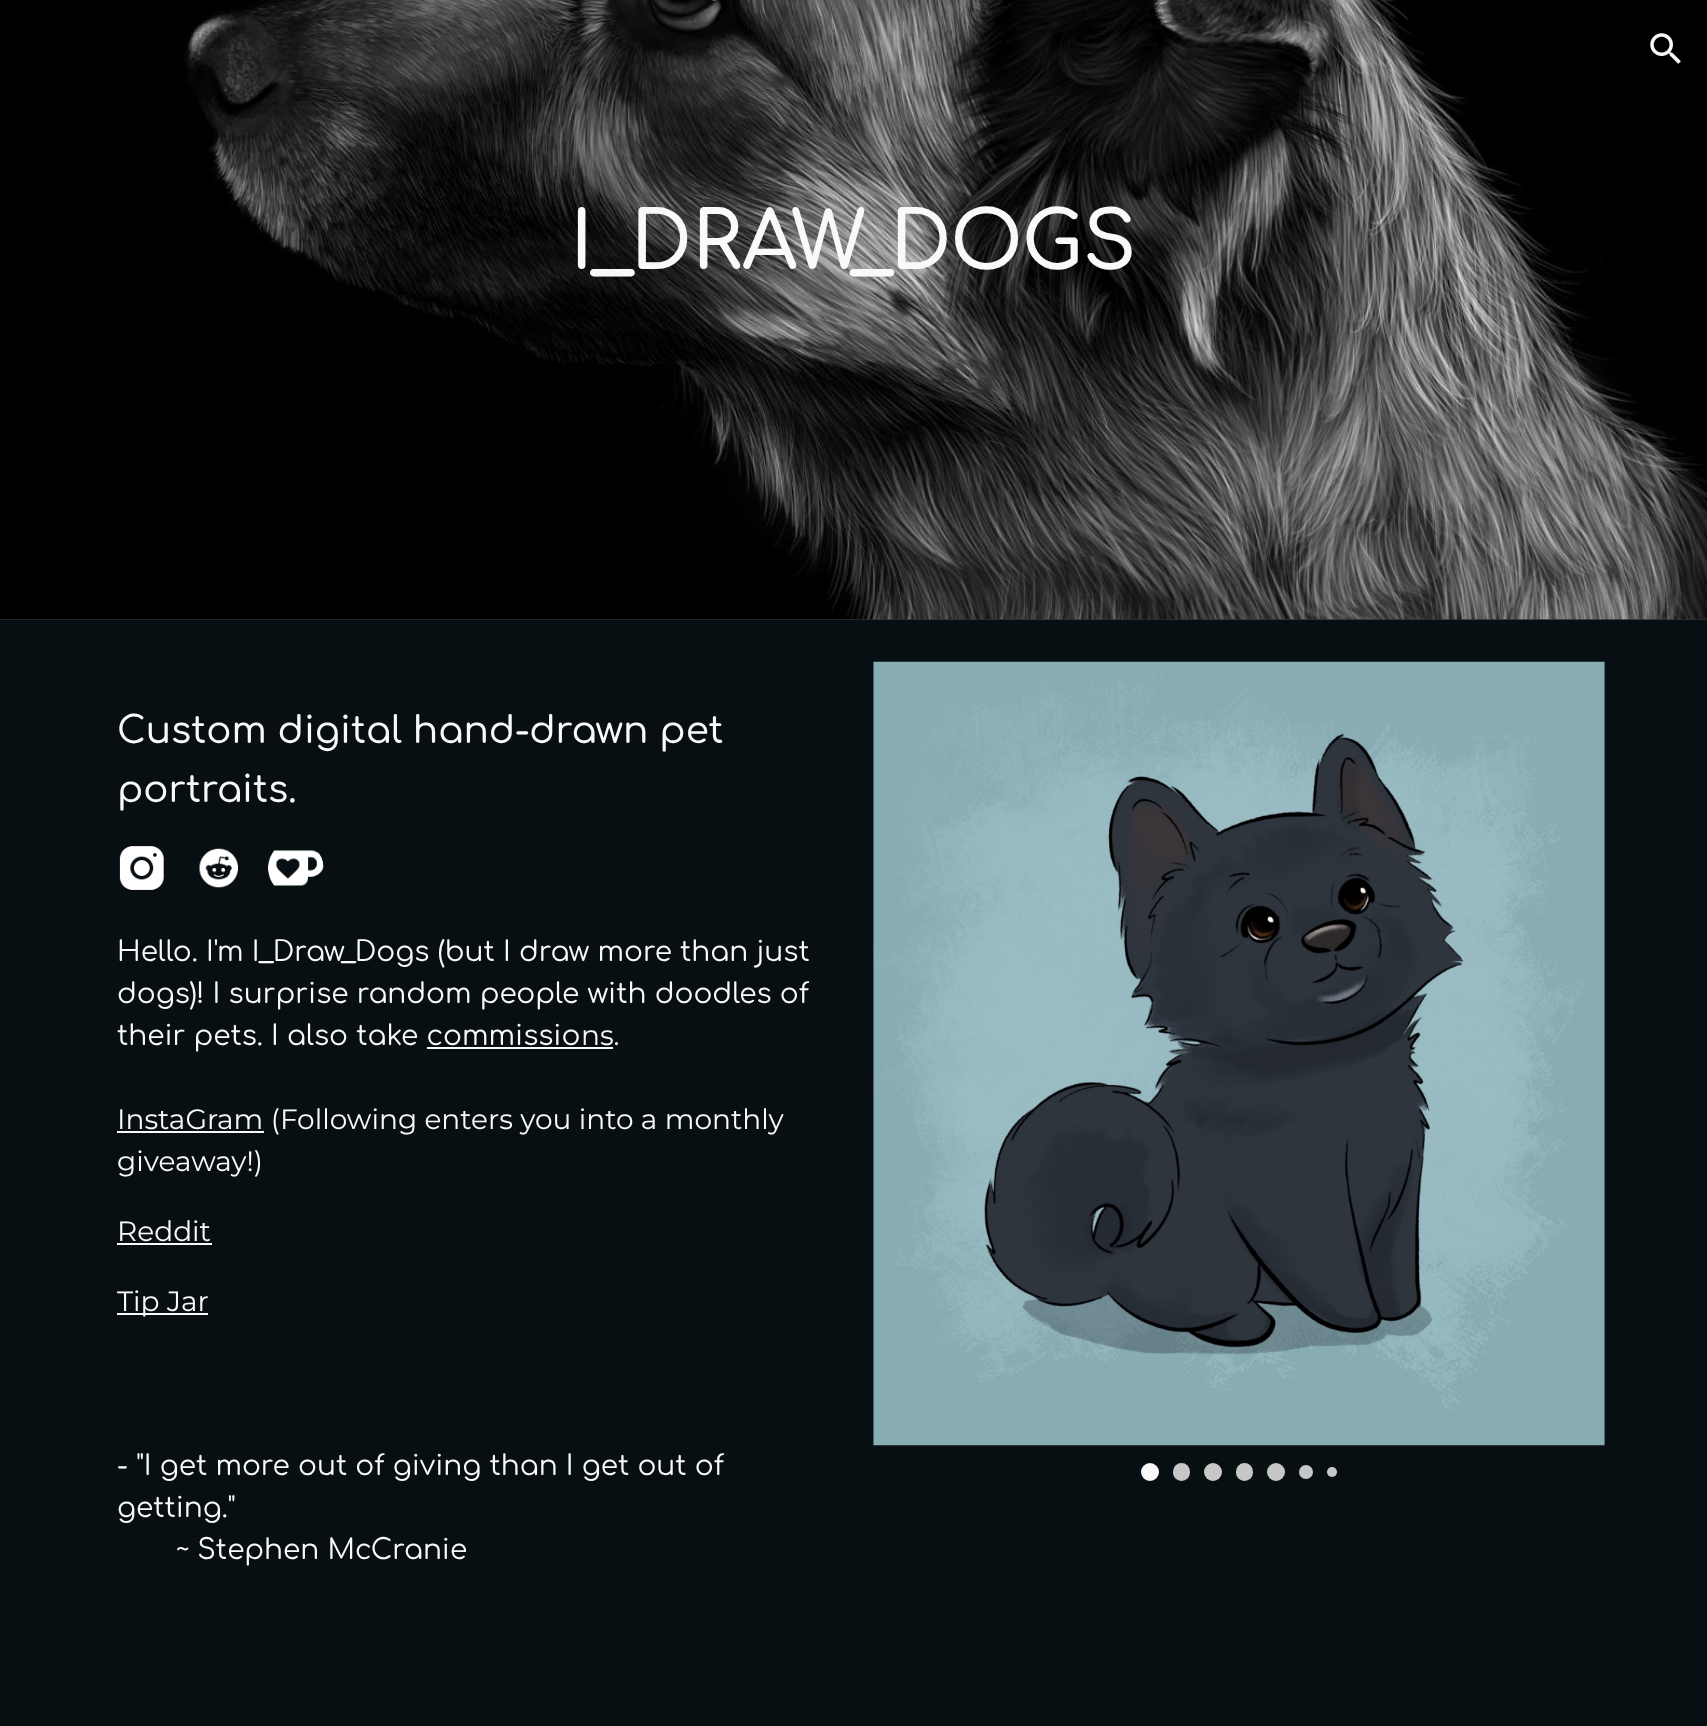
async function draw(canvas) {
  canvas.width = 1707
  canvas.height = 1726
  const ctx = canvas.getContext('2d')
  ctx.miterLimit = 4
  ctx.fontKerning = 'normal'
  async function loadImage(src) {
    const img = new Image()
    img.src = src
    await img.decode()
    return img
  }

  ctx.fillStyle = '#080f13'
  ctx.fillRect(0, 0, 1707, 1726)
  ctx.fillStyle = '#283335'
  ctx.fillRect(0, 619, 1707, 1)
  ctx.drawImage(await loadImage('image1.png'), 0, 0, 1707, 620)
  ctx.drawImage(await loadImage('image0.png'), 1650, 33, 31, 31)
  ctx.font = '600 79.25px Comfortaa'
  ctx.fillStyle = '#f9f9f9'
  ctx.fillText('I_DRAW_DOGS', 570, 269)
  ctx.font = '500 37.3px Comfortaa'
  ctx.fillText('Custom digital hand-drawn pet', 117, 743)
  ctx.fillText('portraits.', 117, 802)
  ctx.drawImage(await loadImage('image2.png'), 119, 846, 45, 44)
  ctx.drawImage(await loadImage('image3.png'), 199, 848, 39, 40)
  ctx.drawImage(await loadImage('image4.png'), 267, 850, 57, 36)
  ctx.font = '28px Comfortaa'
  ctx.fillText('Hello. I\'m I_Draw_Dogs (but I draw more than just', 117, 961)
  ctx.fillText('dogs)! I surprise random people with doodles of', 117, 1003)
  ctx.fillText('their pets. I also take commissio', 117, 1045)
  ctx.font = '28px Montserrat'
  ctx.fillText('ns.', 581, 1045)
  ctx.fillRect(427, 1047, 186, 2)
  ctx.fillRect(117, 1131, 147, 2)
  ctx.fillText('InstaGram (Following enters you into a monthly', 117, 1129)
  ctx.fillText('giveaway!)', 117, 1171)
  ctx.fillText('Reddit', 117, 1241)
  ctx.fillRect(117, 1243, 95, 2)
  ctx.fillRect(117, 1313, 91, 2)
  ctx.fillText('Tip Jar', 117, 1311)
  ctx.font = '28px Comfortaa'
  ctx.fillText('- "I get more out of giving than I get out of', 117, 1475)
  ctx.fillText('getting."', 117, 1517)
  ctx.fillText('~ Stephen McCranie', 176, 1559)
  ctx.drawImage(await loadImage('image5.png'), 873, 661, 732, 785)
  ctx.beginPath()
  ctx.arc(1150, 1472, 9, 0, 2 * Math.PI)
  ctx.fill()
  ctx.fillStyle = '#c7c7c7'
  ctx.beginPath()
  ctx.roundRect(1173, 1463, 17, 18, 8.5)
  ctx.fill()
  ctx.beginPath()
  ctx.arc(1213, 1472, 9, 0, 2 * Math.PI)
  ctx.fill()
  ctx.beginPath()
  ctx.roundRect(1236, 1463, 17, 18, 8.5)
  ctx.fill()
  ctx.beginPath()
  ctx.arc(1276, 1472, 9, 0, 2 * Math.PI)
  ctx.fill()
  ctx.beginPath()
  ctx.arc(1306, 1472, 7, 0, 2 * Math.PI)
  ctx.fill()
  ctx.beginPath()
  ctx.arc(1332, 1472, 5, 0, 2 * Math.PI)
  ctx.fill()
}

draw(document.querySelector('canvas'))
